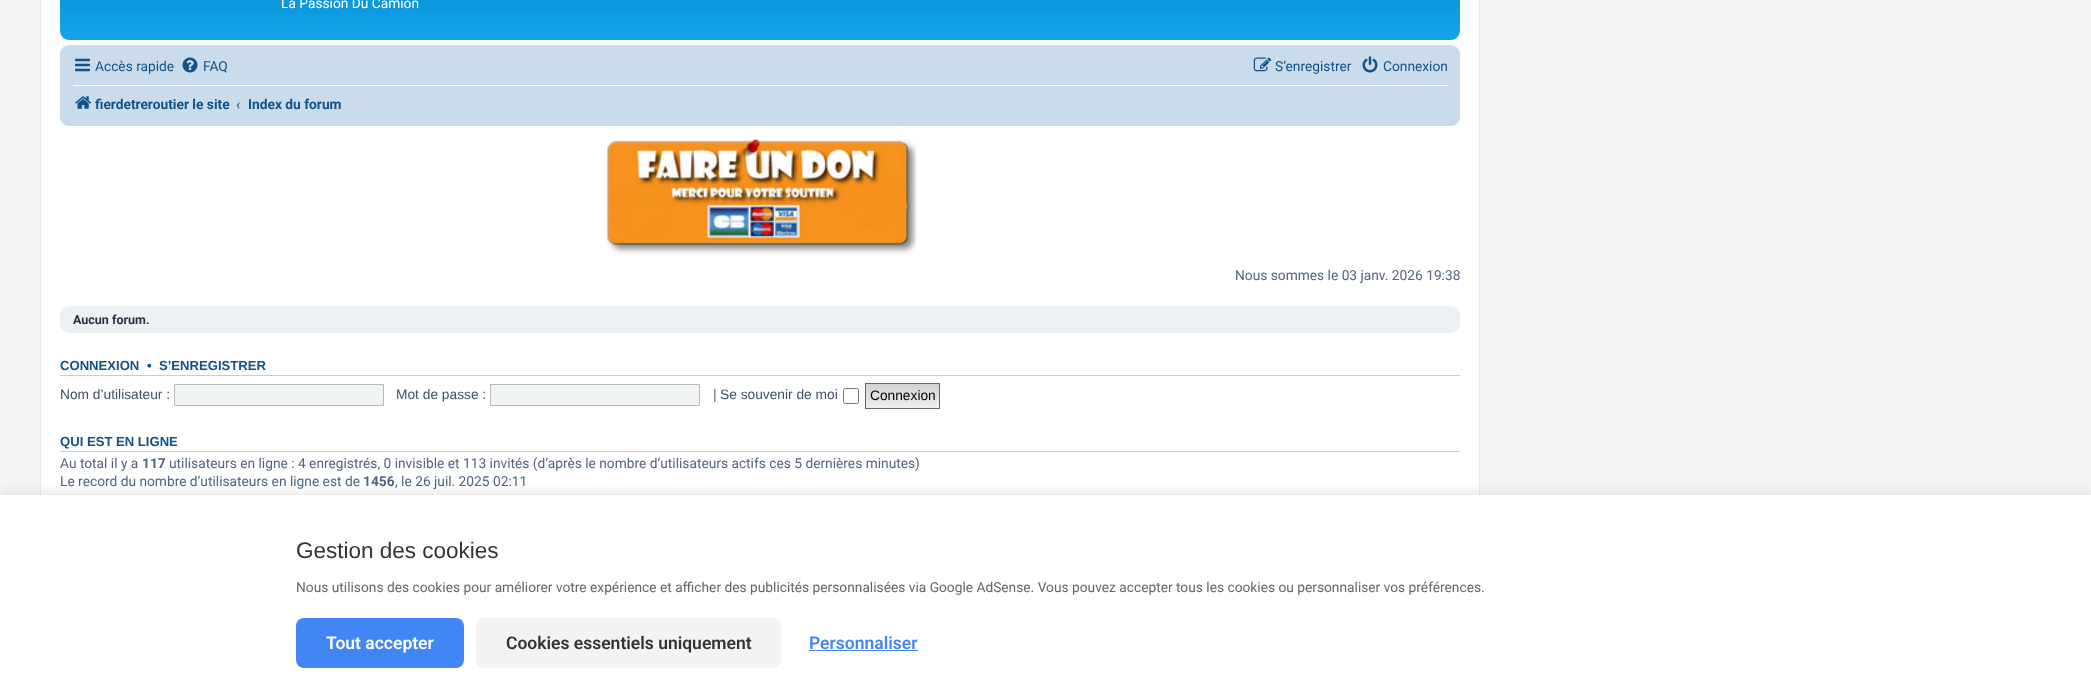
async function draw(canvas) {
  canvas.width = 2091
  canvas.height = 692
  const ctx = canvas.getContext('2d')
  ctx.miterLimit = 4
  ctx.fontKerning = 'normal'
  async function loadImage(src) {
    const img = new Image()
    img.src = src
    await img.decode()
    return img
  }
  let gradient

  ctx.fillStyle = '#f5f5f5'
  ctx.fillRect(0, 0, 2091, 692)
  ctx.fillStyle = '#fff'
  ctx.fillRect(41, 0, 1438, 495)
  ctx.strokeStyle = '#e6e9ed'
  ctx.strokeRect(40.5, -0.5, 1439, 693)
  gradient = ctx.createLinearGradient(760, -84, 760, 40)
  gradient.addColorStop(0, '#6aceff')
  gradient.addColorStop(0.02, '#0076b1')
  gradient.addColorStop(0.93, '#12a3eb')
  gradient.addColorStop(1, '#12a3eb')
  ctx.fillStyle = gradient
  ctx.beginPath()
  ctx.roundRect(60, -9, 1400, 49, 9)
  ctx.fill()
  ctx.font = '13.75px Roboto'
  ctx.fillStyle = '#fff'
  ctx.fillText('La Passion Du Camion', 281, 8)
  ctx.fillStyle = '#cadceb'
  ctx.beginPath()
  ctx.roundRect(60, 45, 1400, 81, 9)
  ctx.fill()
  ctx.drawImage(await loadImage('image0.png'), 75, 58, 15, 14)
  ctx.fillStyle = '#105289'
  ctx.fillText('Accès rapide', 95, 71)
  ctx.drawImage(await loadImage('image1.png'), 182, 57, 16, 16)
  ctx.fillText('FAQ', 203, 71)
  ctx.drawImage(await loadImage('image2.png'), 1253, 57, 19, 15)
  ctx.fillText('S’enregistrer', 1275, 71)
  ctx.drawImage(await loadImage('image3.png'), 1362, 56, 16, 17)
  ctx.fillText('Connexion', 1383, 71)
  ctx.fillStyle = '#fff'
  ctx.fillRect(73, 85, 1375, 1)
  ctx.drawImage(await loadImage('image4.png'), 75, 96, 16, 13)
  ctx.font = 'bold 13.75px Roboto'
  ctx.fillStyle = '#105289'
  ctx.fillText('fierdetreroutier le site', 95, 109)
  ctx.fillStyle = '#536482'
  ctx.fillText('‹', 236, 109)
  ctx.fillStyle = '#105289'
  ctx.fillText('Index du forum', 248, 109)
  ctx.drawImage(await loadImage('image5.png'), 606, 139, 311, 115)
  ctx.font = '13.75px Roboto'
  ctx.fillStyle = '#536482'
  ctx.fillText('Nous sommes le 03 janv. 2026 19:38', 1235, 280)
  ctx.fillStyle = '#ecf1f3'
  ctx.beginPath()
  ctx.roundRect(60, 306, 1400, 27, 9)
  ctx.fill()
  ctx.font = 'bold 12.5px Roboto'
  ctx.fillStyle = '#28313f'
  ctx.fillText('Aucun forum.', 73, 324)
  ctx.fillStyle = '#ccc'
  ctx.fillRect(60, 375, 1400, 1)
  ctx.font = 'bold 13.1px Liberation Sans'
  ctx.fillStyle = '#105289'
  ctx.fillText('CONNEXION', 60, 370)
  ctx.fillStyle = '#115098'
  ctx.fillText('•', 147, 370)
  ctx.fillStyle = '#105289'
  ctx.fillText('S’ENREGISTRER', 159, 370)
  ctx.font = '13.75px Liberation Sans'
  ctx.fillStyle = '#425067'
  ctx.fillText('Nom d’utilisateur :', 60, 399)
  ctx.fillStyle = '#f2f3f3'
  ctx.beginPath()
  ctx.rect(174.5, 384.5, 209, 21)
  ctx.fill()
  ctx.strokeStyle = '#b4bac0'
  ctx.stroke()
  ctx.fillStyle = '#425067'
  ctx.fillText('Mot de passe :', 396, 399)
  ctx.fillStyle = '#f2f3f3'
  ctx.beginPath()
  ctx.rect(490.5, 384.5, 209, 21)
  ctx.fill()
  ctx.stroke()
  ctx.fillStyle = '#536482'
  ctx.fillText('|', 713, 399)
  ctx.fillStyle = '#425067'
  ctx.fillText('Se souvenir de moi', 720, 399)
  ctx.beginPath()
  ctx.roundRect(843.5, 388.5, 15, 15, 2)
  ctx.strokeStyle = '#767676'
  ctx.stroke()
  gradient = ctx.createLinearGradient(903, 384, 903, 408)
  gradient.addColorStop(0, '#d2d2d2')
  gradient.addColorStop(1, '#efefef')
  ctx.fillStyle = gradient
  ctx.fillRect(866, 384, 73, 24)
  ctx.strokeStyle = '#666'
  ctx.strokeRect(865.5, 383.5, 74, 25)
  ctx.fillStyle = '#000'
  ctx.fillText('Connexion', 870, 400)
  ctx.fillStyle = '#ccc'
  ctx.fillRect(60, 451, 1400, 1)
  ctx.font = 'bold 13.1px Liberation Sans'
  ctx.fillStyle = '#105289'
  ctx.fillText('QUI EST EN LIGNE', 60, 446)
  ctx.font = '13.75px Roboto'
  ctx.fillStyle = '#536482'
  ctx.fillText('Au total il y a', 60, 468)
  ctx.font = 'bold 13.75px Roboto'
  ctx.fillText('117', 142, 468)
  ctx.font = '13.75px Roboto'
  ctx.fillText('utilisateurs en ligne : 4 enregistrés, 0 invisible et 113 invités (d’après le nombre d’utilisateurs actifs ces 5 dernières minutes)', 169, 468)
  ctx.fillText('Le record du nombre d’utilisateurs en ligne est de', 60, 486)
  ctx.font = 'bold 13.75px Roboto'
  ctx.fillText('1456', 363, 486)
  ctx.font = '13.75px Roboto'
  ctx.fillText(', le 26 juil. 2025 02:11', 395, 486)
  ctx.fillStyle = '#0000001a'
  ctx.filter = 'blur(6px)'
  ctx.beginPath()
  ctx.rect(0, 493, 2091, 197)
  ctx.fill()
  ctx.filter = 'none'
  ctx.fillStyle = '#fff'
  ctx.fillRect(0, 495, 2091, 197)
  ctx.font = '22.5px Liberation Sans'
  ctx.fillStyle = '#333'
  ctx.fillText('Gestion des cookies', 296, 558)
  ctx.font = '13.75px Roboto'
  ctx.fillStyle = '#666'
  ctx.fillText('Nous utilisons des cookies pour améliorer votre expérience et afficher des publicités personnalisées via Google AdSense. Vous pouvez accepter tous les cookies ou personnaliser vos préférences.', 296, 592)
  ctx.fillStyle = '#4285f4'
  ctx.beginPath()
  ctx.roundRect(296, 618, 168, 50, 8)
  ctx.fill()
  ctx.font = '600 17.5px Roboto'
  ctx.fillStyle = '#fff'
  ctx.fillText('Tout accepter', 326, 649)
  ctx.fillStyle = '#f1f3f4'
  ctx.beginPath()
  ctx.roundRect(476, 618, 305, 50, 8)
  ctx.fill()
  ctx.fillStyle = '#333'
  ctx.fillText('Cookies essentiels uniquement', 506, 649)
  ctx.fillStyle = '#4285f4'
  ctx.fillText('Personnaliser', 809, 649)
  ctx.fillRect(809, 650, 109, 1)
}

draw(document.querySelector('canvas'))
